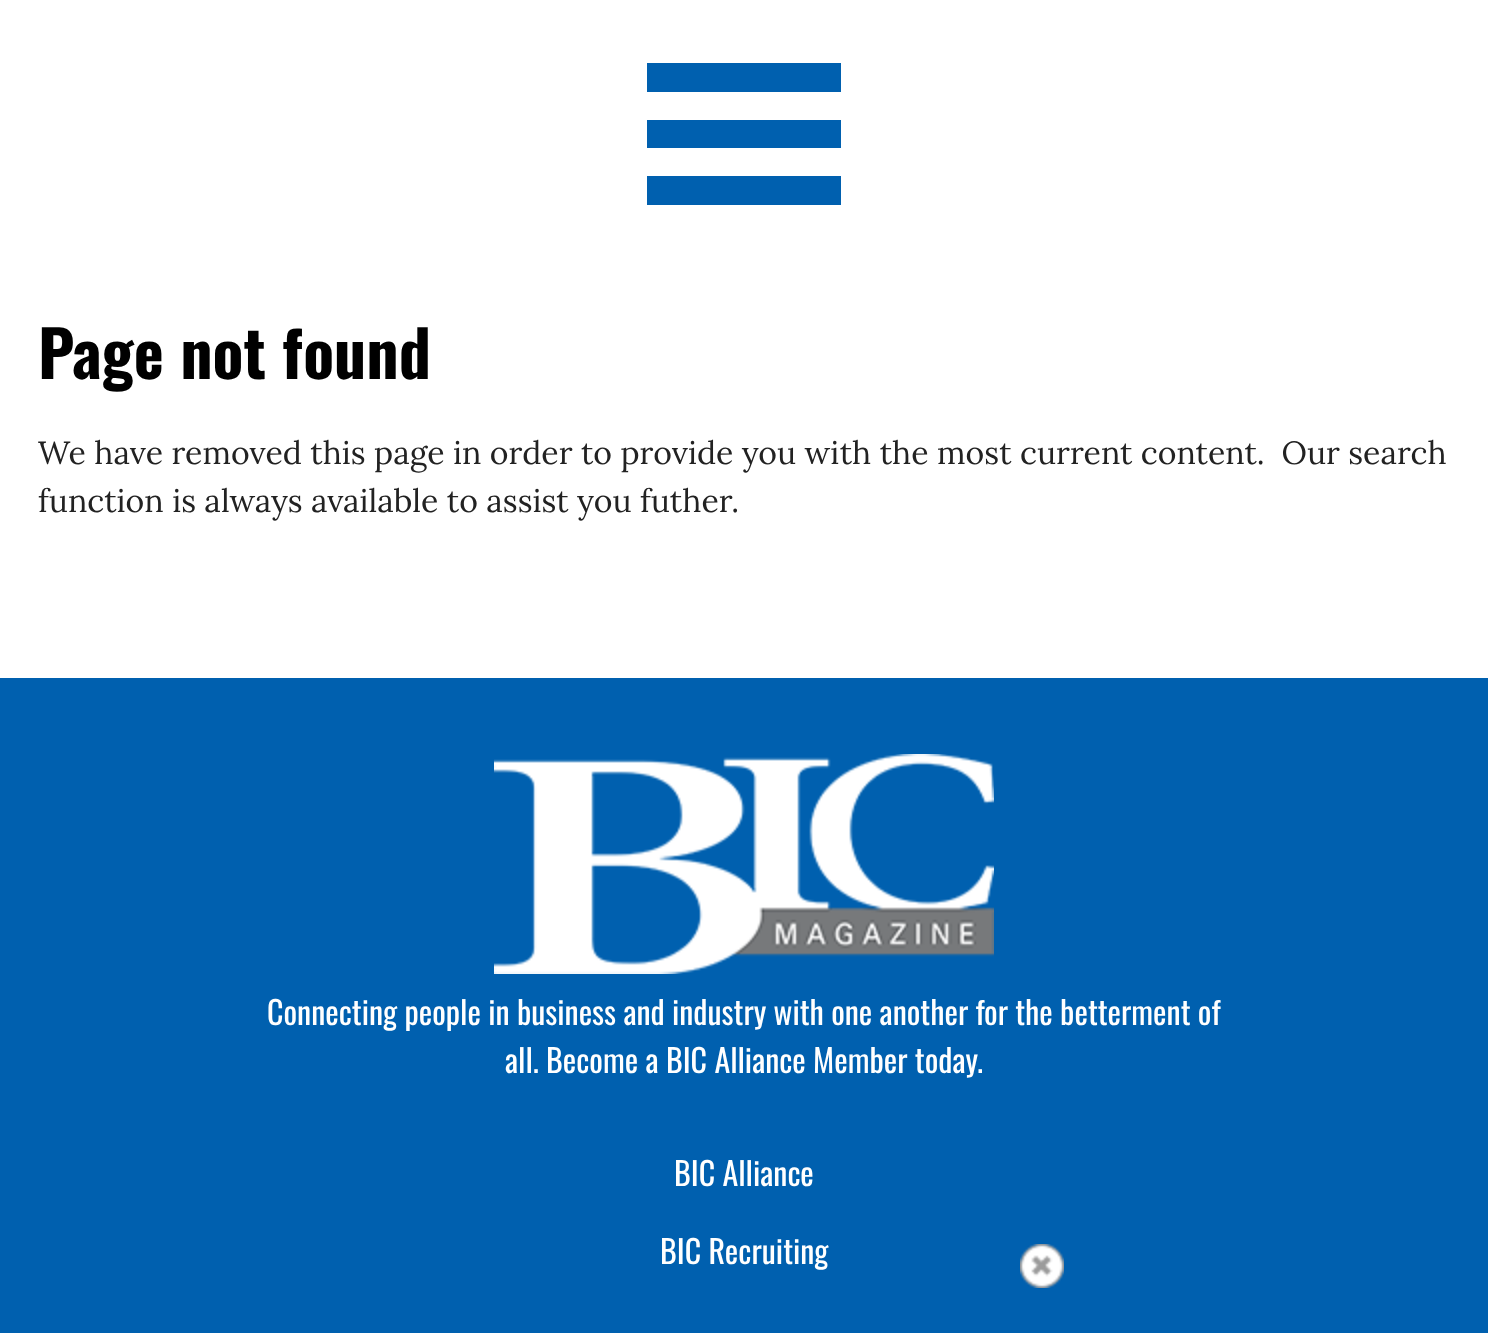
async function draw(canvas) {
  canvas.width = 1488
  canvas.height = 1333
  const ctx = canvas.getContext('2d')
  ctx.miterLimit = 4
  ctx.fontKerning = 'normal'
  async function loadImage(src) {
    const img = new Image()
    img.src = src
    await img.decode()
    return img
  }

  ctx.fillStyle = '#fff'
  ctx.fillRect(0, 0, 1488, 1333)
  ctx.fillStyle = '#0060af'
  ctx.beginPath()
  ctx.moveTo(841, 176)
  ctx.lineTo(647, 176)
  ctx.lineTo(647, 205)
  ctx.lineTo(841, 205)
  ctx.closePath()
  ctx.moveTo(841, 120)
  ctx.lineTo(647, 120)
  ctx.lineTo(647, 148)
  ctx.lineTo(841, 148)
  ctx.closePath()
  ctx.moveTo(841, 63)
  ctx.lineTo(647, 63)
  ctx.lineTo(647, 92)
  ctx.lineTo(841, 92)
  ctx.closePath()
  ctx.fill()
  ctx.font = 'bold 64px Oswald'
  ctx.fillStyle = '#000'
  ctx.fillText('Page not found', 38, 379)
  ctx.font = '32px Lora'
  ctx.fillStyle = '#222'
  ctx.fillText('We have removed this page in order to provide you with the most current content.  Our search', 38, 464)
  ctx.fillText('function is always available to assist you futher.', 38, 512)
  ctx.fillStyle = '#0060af'
  ctx.fillRect(0, 678, 1488, 655)
  ctx.drawImage(await loadImage('image0.png'), 494, 754, 500, 220)
  ctx.font = '32px Oswald'
  ctx.fillStyle = '#fff'
  ctx.fillText('Connecting people in business and industry with one another for the betterment of', 267, 1025)
  ctx.fillText('all. Become a BIC Alliance Member today.', 505, 1073)
  ctx.fillText('BIC Alliance', 674, 1186)
  ctx.fillText('BIC Recruiting', 660, 1264)
  ctx.drawImage(await loadImage('image1.png'), 1020, 1244, 44, 44)
}

draw(document.querySelector('canvas'))
